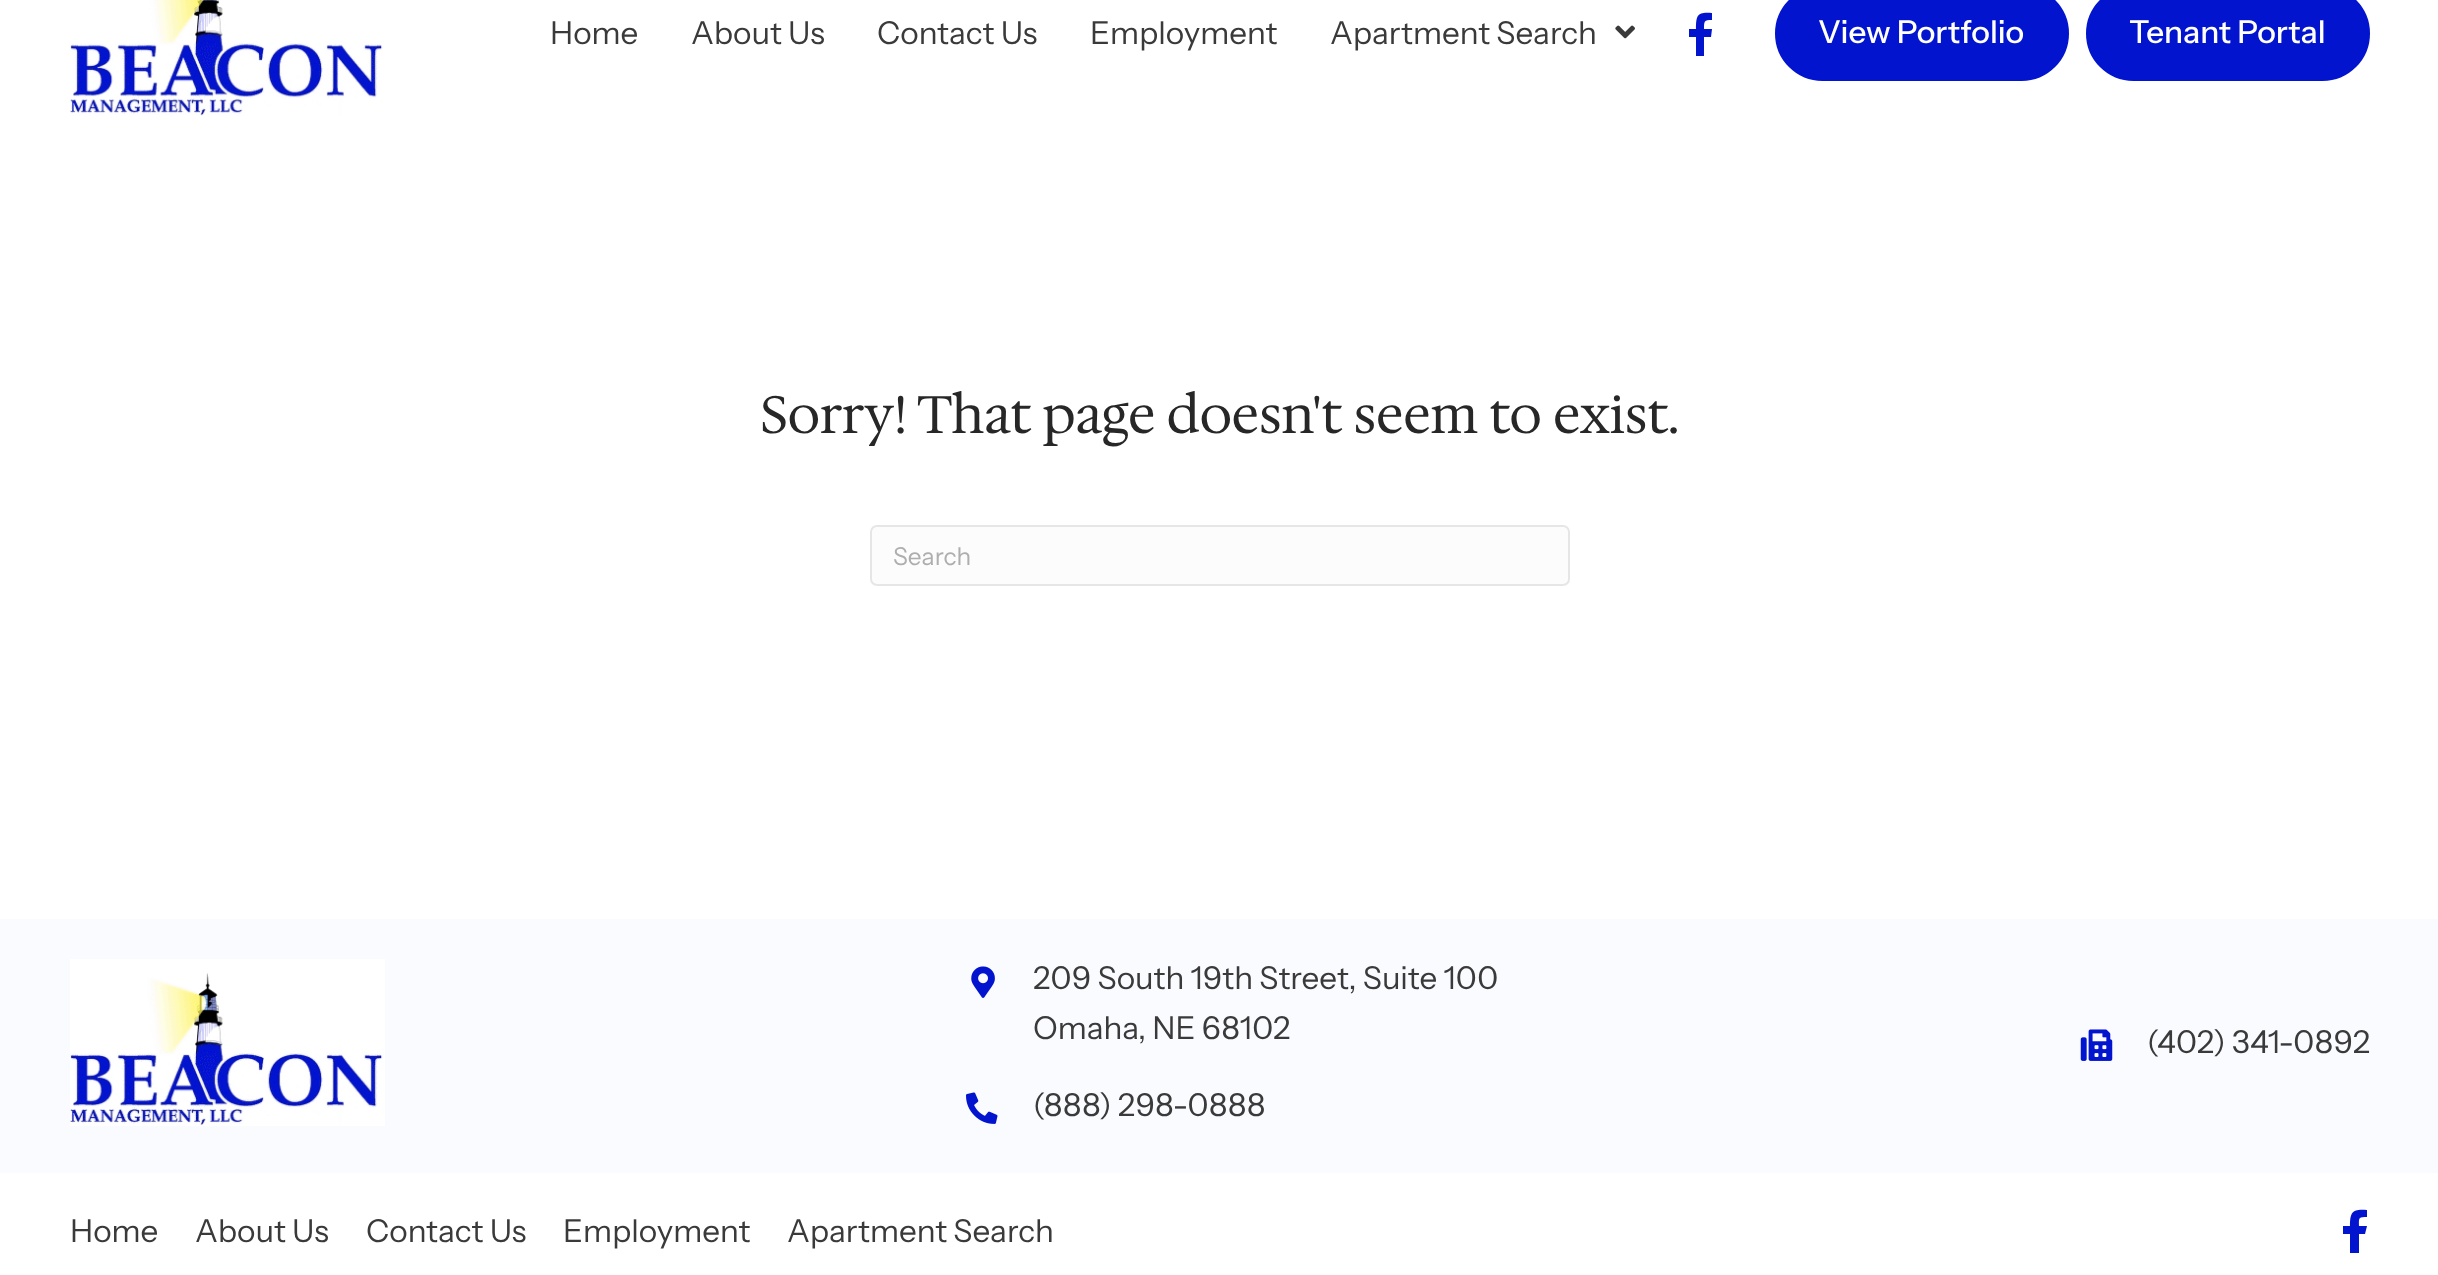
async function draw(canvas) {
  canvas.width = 2438
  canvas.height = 1275
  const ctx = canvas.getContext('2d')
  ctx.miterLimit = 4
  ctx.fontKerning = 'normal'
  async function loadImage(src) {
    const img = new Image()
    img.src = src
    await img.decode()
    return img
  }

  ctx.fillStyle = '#fff'
  ctx.fillRect(0, 0, 2438, 1275)
  ctx.drawImage(await loadImage('image0.png'), 70, 0, 313, 116)
  ctx.font = '31.5px Instrument Sans'
  ctx.fillStyle = '#3a3a3a'
  ctx.fillText('Home', 550, 44)
  ctx.fillText('About Us', 691, 44)
  ctx.fillText('Contact Us', 877, 44)
  ctx.fillText('Employment', 1090, 44)
  ctx.fillText('Apartment Search', 1330, 44)
  ctx.drawImage(await loadImage('image1.png'), 1615, 25, 20, 14)
  ctx.fillStyle = '#0214ce'
  ctx.beginPath()
  ctx.moveTo(1711, 37)
  ctx.lineTo(1704, 37)
  ctx.lineTo(1704, 56)
  ctx.lineTo(1696, 56)
  ctx.lineTo(1696, 37)
  ctx.lineTo(1689, 37)
  ctx.lineTo(1689, 29)
  ctx.lineTo(1696, 29)
  ctx.bezierCurveTo(1696, 14, 1698, 12, 1712, 13)
  ctx.lineTo(1712, 20)
  ctx.bezierCurveTo(1704, 20, 1704, 21, 1704, 29)
  ctx.lineTo(1712, 29)
  ctx.closePath()
  ctx.fill()
  ctx.beginPath()
  ctx.roundRect(1776, -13, 292, 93, 46.5)
  ctx.fill()
  ctx.strokeStyle = '#0214ce'
  ctx.lineWidth = 2
  ctx.stroke()
  ctx.font = '500 31.5px Instrument Sans'
  ctx.fillStyle = '#fff'
  ctx.fillText('View Portfolio', 1818, 43)
  ctx.fillStyle = '#0214ce'
  ctx.beginPath()
  ctx.roundRect(2087, -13, 282, 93, 46.5)
  ctx.fill()
  ctx.stroke()
  ctx.fillStyle = '#fff'
  ctx.fillText('Tenant Portal', 2129, 43)
  ctx.font = '52.5px Hedvig Letters Serif'
  ctx.fillStyle = '#272727'
  ctx.fillText('Sorry! That page doesn\'t seem to exist.', 760, 433)
  ctx.fillStyle = '#fcfcfc'
  ctx.beginPath()
  ctx.roundRect(871, 526, 698, 59, 6)
  ctx.fill()
  ctx.strokeStyle = '#e6e6e6'
  ctx.stroke()
  ctx.font = '24.5px Instrument Sans'
  ctx.fillStyle = '#aeaeae'
  ctx.fillText('Search', 893, 565)
  ctx.fillStyle = '#fafbff'
  ctx.fillRect(0, 919, 2438, 254)
  ctx.drawImage(await loadImage('image2.png'), 70, 959, 315, 167)
  ctx.drawImage(await loadImage('image3.png'), 971, 966, 24, 32)
  ctx.font = '31.5px Instrument Sans'
  ctx.fillStyle = '#3a3a3a'
  ctx.fillText('209 South 19th Street, Suite 100', 1033, 989)
  ctx.fillText('Omaha, NE 68102', 1033, 1039)
  ctx.drawImage(await loadImage('image4.png'), 966, 1092, 32, 32)
  ctx.fillText('(888) 298-0888', 1033, 1116)
  ctx.drawImage(await loadImage('image5.png'), 2080, 1029, 33, 32)
  ctx.fillText('(402) 341-0892', 2147, 1053)
  ctx.fillText('Home', 70, 1242)
  ctx.fillText('About Us', 195, 1242)
  ctx.fillText('Contact Us', 366, 1242)
  ctx.fillText('Employment', 563, 1242)
  ctx.fillText('Apartment Search', 787, 1242)
  ctx.fillStyle = '#0214ce'
  ctx.beginPath()
  ctx.moveTo(2365, 1234)
  ctx.lineTo(2359, 1234)
  ctx.lineTo(2359, 1253)
  ctx.lineTo(2350, 1253)
  ctx.lineTo(2350, 1234)
  ctx.lineTo(2343, 1234)
  ctx.lineTo(2343, 1226)
  ctx.lineTo(2350, 1226)
  ctx.bezierCurveTo(2350, 1211, 2353, 1209, 2367, 1210)
  ctx.lineTo(2367, 1217)
  ctx.bezierCurveTo(2358, 1217, 2359, 1218, 2359, 1226)
  ctx.lineTo(2367, 1226)
  ctx.closePath()
  ctx.fill()
}

draw(document.querySelector('canvas'))
